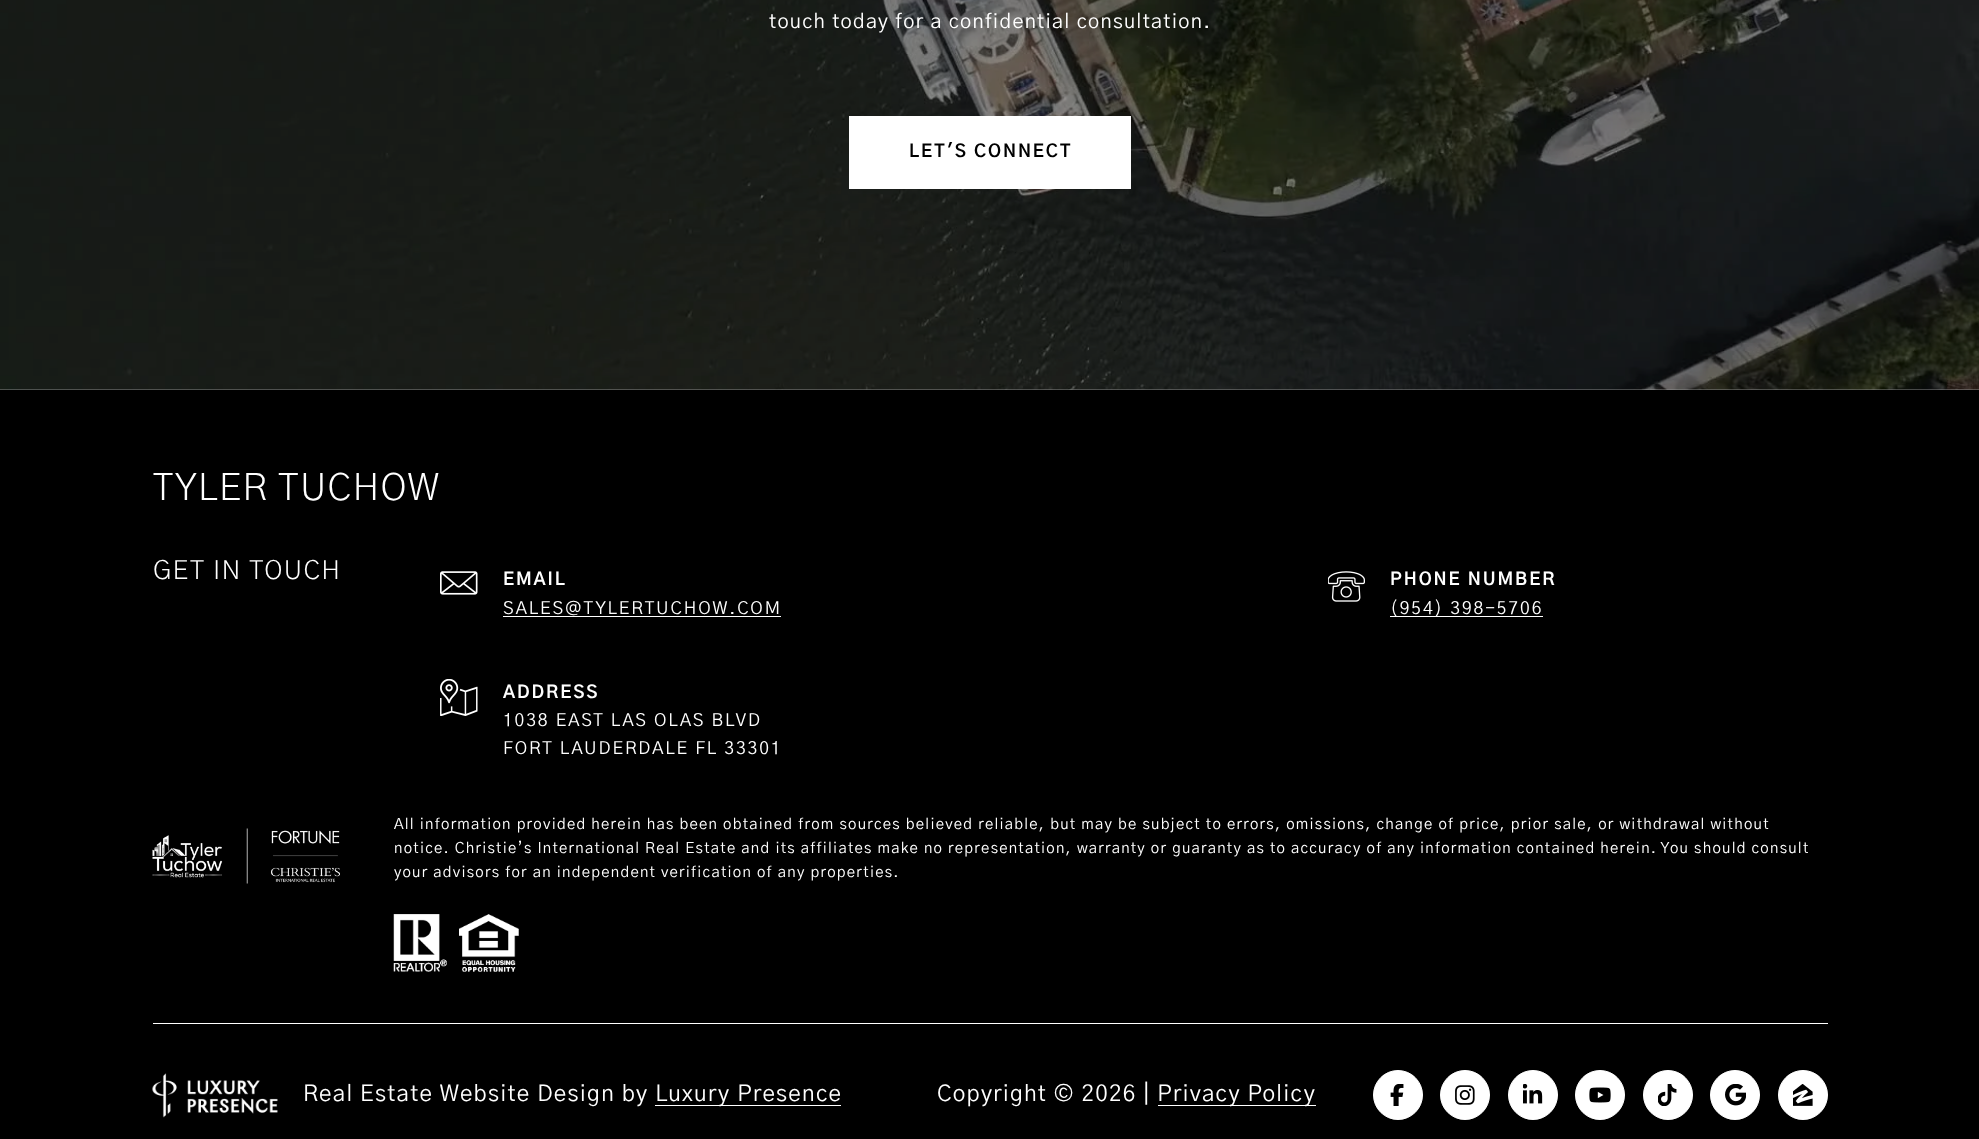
async function draw(canvas) {
  canvas.width = 1979
  canvas.height = 1139
  const ctx = canvas.getContext('2d')
  ctx.miterLimit = 4
  ctx.fontKerning = 'normal'
  async function loadImage(src) {
    const img = new Image()
    img.src = src
    await img.decode()
    return img
  }

  ctx.fillStyle = '#999'
  ctx.fillRect(0, 0, 1979, 1139)
  ctx.drawImage(await loadImage('image0.png'), 0, 0, 1979, 390)
  ctx.letterSpacing = '1.25px'
  ctx.font = '20px "Gothic A1"'
  ctx.fillStyle = '#fff'
  ctx.fillText('touch today for a confidential consultation.', 769, 28)
  ctx.fillRect(849, 116, 282, 73)
  ctx.letterSpacing = '1.9px'
  ctx.font = 'bold 17.5px "Gothic A1"'
  ctx.fillStyle = '#000'
  ctx.fillText('LET\'S CONNECT', 909, 157)
  ctx.fillRect(0, 390, 1979, 749)
  ctx.letterSpacing = '1.25px'
  ctx.font = '300 37.5px "Gothic A1"'
  ctx.fillStyle = '#fff'
  ctx.fillText('TYLER TUCHOW', 153, 500)
  ctx.font = '300 26.25px "Gothic A1"'
  ctx.fillText('GET IN TOUCH', 153, 579)
  ctx.drawImage(await loadImage('image1.png'), 440, 571, 38, 24)
  ctx.letterSpacing = '1.9px'
  ctx.font = 'bold 17.5px "Gothic A1"'
  ctx.fillText('EMAIL', 503, 585)
  ctx.font = '17.5px "Gothic A1"'
  ctx.fillText('SALES@TYLERTUCHOW.COM', 503, 614)
  ctx.fillRect(503, 616, 278, 1)
  ctx.drawImage(await loadImage('image2.png'), 1328, 571, 37, 31)
  ctx.font = 'bold 17.5px "Gothic A1"'
  ctx.fillText('PHONE NUMBER', 1390, 585)
  ctx.font = '17.5px "Gothic A1"'
  ctx.fillText('(954) 398-5706', 1390, 614)
  ctx.fillRect(1390, 616, 153, 1)
  ctx.drawImage(await loadImage('image3.png'), 440, 679, 38, 37)
  ctx.font = 'bold 17.5px "Gothic A1"'
  ctx.fillText('ADDRESS', 503, 698)
  ctx.font = '17.5px "Gothic A1"'
  ctx.fillText('1038 EAST LAS OLAS BLVD', 503, 726)
  ctx.fillText('FORT LAUDERDALE FL 33301', 503, 754)
  ctx.drawImage(await loadImage('image4.png'), 152, 828, 188, 56)
  ctx.letterSpacing = '1.25px'
  ctx.font = '15px "Gothic A1"'
  ctx.fillText('All information provided herein has been obtained from sources believed reliable, but may be subject to errors, omissions, change of price, prior sale, or withdrawal without', 394, 829)
  ctx.fillText('notice. Christie’s International Real Estate and its affiliates make no representation, warranty or guaranty as to accuracy of any information contained herein. You should consult', 394, 853)
  ctx.fillText('your advisors for an independent verification of any properties.', 394, 877)
  ctx.drawImage(await loadImage('image5.png'), 393, 914, 126, 58)
  ctx.fillRect(153, 1023, 1675, 1)
  ctx.drawImage(await loadImage('image6.png'), 152, 1073, 126, 45)
  ctx.font = '22.5px "Gothic A1"'
  ctx.fillText('Real Estate Website Design by Luxury Presence', 303, 1101)
  ctx.fillRect(655, 1105, 186, 1)
  ctx.fillText('Copyright © 2026 | Privacy Policy', 937, 1101)
  ctx.fillRect(1158, 1105, 158, 1)
  ctx.beginPath()
  ctx.arc(1398, 1095, 24.5, 0, 2 * Math.PI)
  ctx.fill()
  ctx.strokeStyle = '#fff'
  ctx.stroke()
  ctx.drawImage(await loadImage('image7.png'), 1390, 1084, 14, 22)
  ctx.beginPath()
  ctx.arc(1465, 1095, 24.5, 0, 2 * Math.PI)
  ctx.fill()
  ctx.stroke()
  ctx.drawImage(await loadImage('image8.png'), 1455, 1085, 20, 20)
  ctx.beginPath()
  ctx.arc(1533, 1095, 24.5, 0, 2 * Math.PI)
  ctx.fill()
  ctx.stroke()
  ctx.drawImage(await loadImage('image9.png'), 1523, 1084, 20, 20)
  ctx.beginPath()
  ctx.arc(1600, 1095, 24.5, 0, 2 * Math.PI)
  ctx.fill()
  ctx.stroke()
  ctx.drawImage(await loadImage('image10.png'), 1589, 1087, 22, 16)
  ctx.beginPath()
  ctx.arc(1668, 1095, 24.5, 0, 2 * Math.PI)
  ctx.fill()
  ctx.stroke()
  ctx.drawImage(await loadImage('image11.png'), 1658, 1084, 19, 22)
  ctx.beginPath()
  ctx.arc(1735, 1095, 24.5, 0, 2 * Math.PI)
  ctx.fill()
  ctx.stroke()
  ctx.drawImage(await loadImage('image12.png'), 1725, 1084, 21, 22)
  ctx.beginPath()
  ctx.arc(1803, 1095, 24.5, 0, 2 * Math.PI)
  ctx.fill()
  ctx.stroke()
  ctx.drawImage(await loadImage('image13.png'), 1793, 1084, 20, 22)
}

draw(document.querySelector('canvas'))
